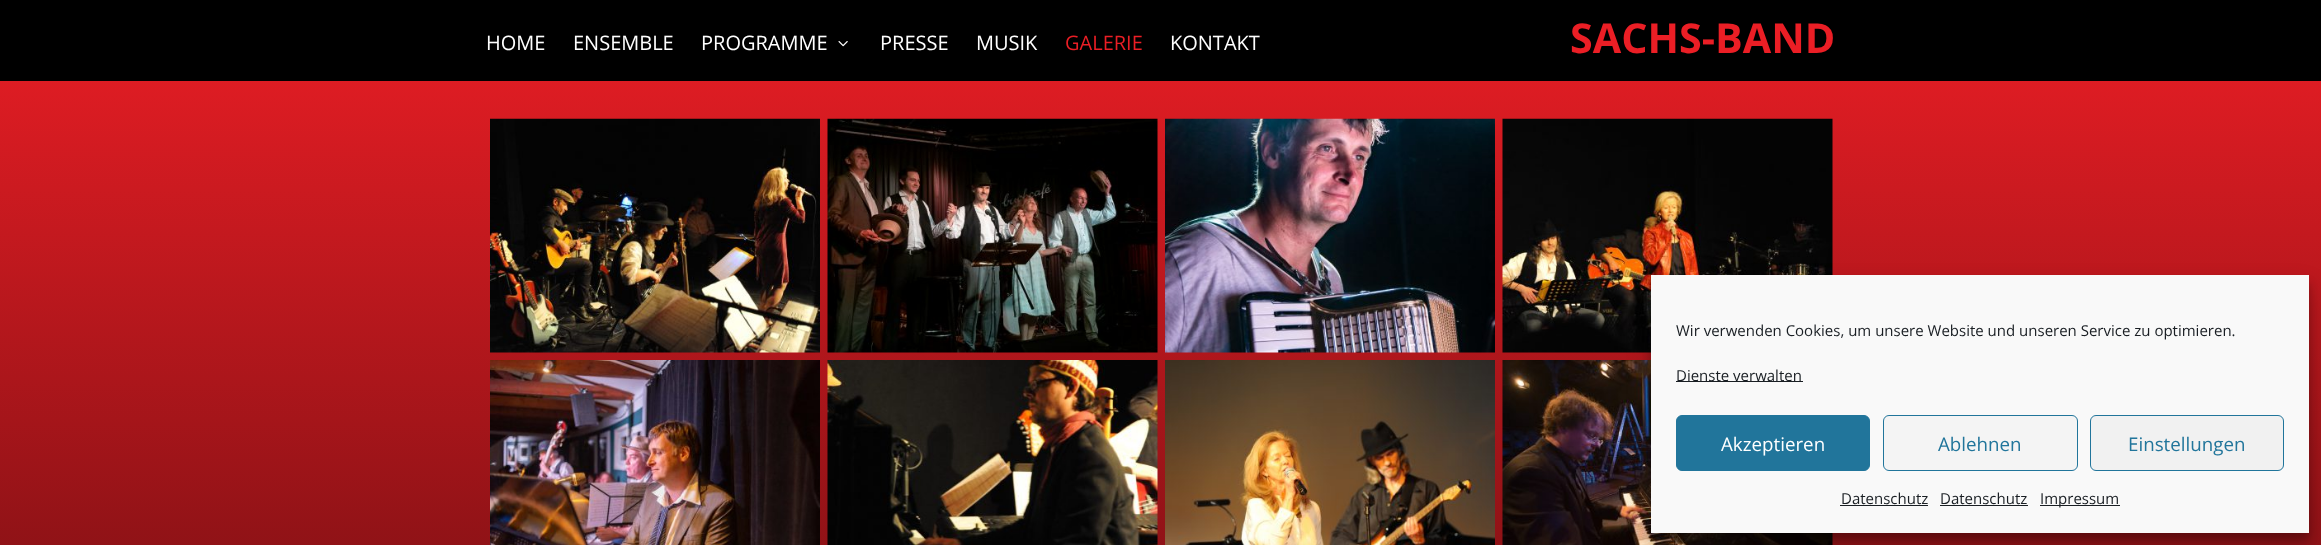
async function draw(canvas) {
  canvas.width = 2321
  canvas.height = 545
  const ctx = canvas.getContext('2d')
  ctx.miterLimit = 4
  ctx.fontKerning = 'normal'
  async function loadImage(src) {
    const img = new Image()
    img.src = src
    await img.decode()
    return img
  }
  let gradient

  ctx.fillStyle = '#fff'
  ctx.fillRect(0, 0, 2321, 545)
  ctx.fillStyle = '#000'
  ctx.fillRect(0, 0, 2321, 81)
  ctx.font = '20px Open Sans'
  ctx.fillStyle = '#fff'
  ctx.fillText('HOME', 486, 50)
  ctx.fillText('ENSEMBLE', 573, 50)
  ctx.fillText('PROGRAMME', 701, 50)
  ctx.drawImage(await loadImage('image0.png'), 838, 41, 10, 6)
  ctx.fillText('PRESSE', 880, 50)
  ctx.fillText('MUSIK', 976, 50)
  ctx.fillStyle = '#eb1e25'
  ctx.fillText('GALERIE', 1065, 50)
  ctx.fillStyle = '#fff'
  ctx.fillText('KONTAKT', 1170, 50)
  ctx.font = 'bold 41.25px Open Sans'
  ctx.fillStyle = '#eb1e25'
  ctx.fillText('SACHS-BAND', 1570, 53)
  gradient = ctx.createLinearGradient(1161, 0, 1161, 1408)
  gradient.addColorStop(0, '#eb1e25')
  gradient.addColorStop(1, '#000')
  ctx.fillStyle = gradient
  ctx.fillRect(0, 81, 2321, 464)
  ctx.drawImage(await loadImage('image1.png'), 490, 118, 330, 235)
  ctx.drawImage(await loadImage('image2.png'), 827, 118, 331, 235)
  ctx.drawImage(await loadImage('image3.png'), 1165, 118, 330, 235)
  ctx.drawImage(await loadImage('image4.png'), 1502, 118, 331, 235)
  ctx.drawImage(await loadImage('image5.png'), 490, 360, 330, 185)
  ctx.drawImage(await loadImage('image6.png'), 827, 360, 331, 185)
  ctx.drawImage(await loadImage('image7.png'), 1165, 360, 330, 185)
  ctx.drawImage(await loadImage('image8.png'), 1502, 360, 331, 185)
  ctx.fillStyle = '#0000003b'
  ctx.filter = 'blur(4px)'
  ctx.beginPath()
  ctx.rect(1651, 283, 658, 257)
  ctx.fill()
  ctx.filter = 'none'
  ctx.fillStyle = '#00000030'
  ctx.filter = 'blur(12.5px)'
  ctx.beginPath()
  ctx.rect(1651, 288, 658, 257)
  ctx.fill()
  ctx.filter = 'none'
  ctx.fillStyle = '#f9f9f9'
  ctx.fillRect(1651, 275, 658, 258)
  ctx.font = '15px Open Sans'
  ctx.fillStyle = '#191e23'
  ctx.fillText('Wir verwenden Cookies, um unsere Website und unseren Service zu optimieren.', 1676, 336)
  ctx.fillRect(1676, 381, 127, 1)
  ctx.fillText('Dienste verwalten', 1676, 381)
  ctx.fillStyle = '#21759b'
  ctx.beginPath()
  ctx.roundRect(1676.5, 415.5, 193, 55, 5.5)
  ctx.fill()
  ctx.strokeStyle = '#21759b'
  ctx.stroke()
  ctx.font = '18.75px Open Sans'
  ctx.fillStyle = '#fff'
  ctx.fillText('Akzeptieren', 1721, 451)
  ctx.fillStyle = '#f4f4f4'
  ctx.beginPath()
  ctx.roundRect(1883.5, 415.5, 194, 55, 5.5)
  ctx.fill()
  ctx.stroke()
  ctx.fillStyle = '#21759b'
  ctx.fillText('Ablehnen', 1938, 451)
  ctx.fillStyle = '#f1f1f1'
  ctx.beginPath()
  ctx.roundRect(2090.5, 415.5, 193, 55, 5.5)
  ctx.fill()
  ctx.stroke()
  ctx.fillStyle = '#21759b'
  ctx.fillText('Einstellungen', 2128, 451)
  ctx.font = '15px Open Sans'
  ctx.fillStyle = '#191e23'
  ctx.fillText('Datenschutz', 1841, 504)
  ctx.fillRect(1840, 505, 88, 1)
  ctx.fillText('Datenschutz', 1940, 504)
  ctx.fillRect(1940, 505, 88, 1)
  ctx.fillRect(2040, 505, 80, 1)
  ctx.fillText('Impressum', 2040, 504)
}

draw(document.querySelector('canvas'))
